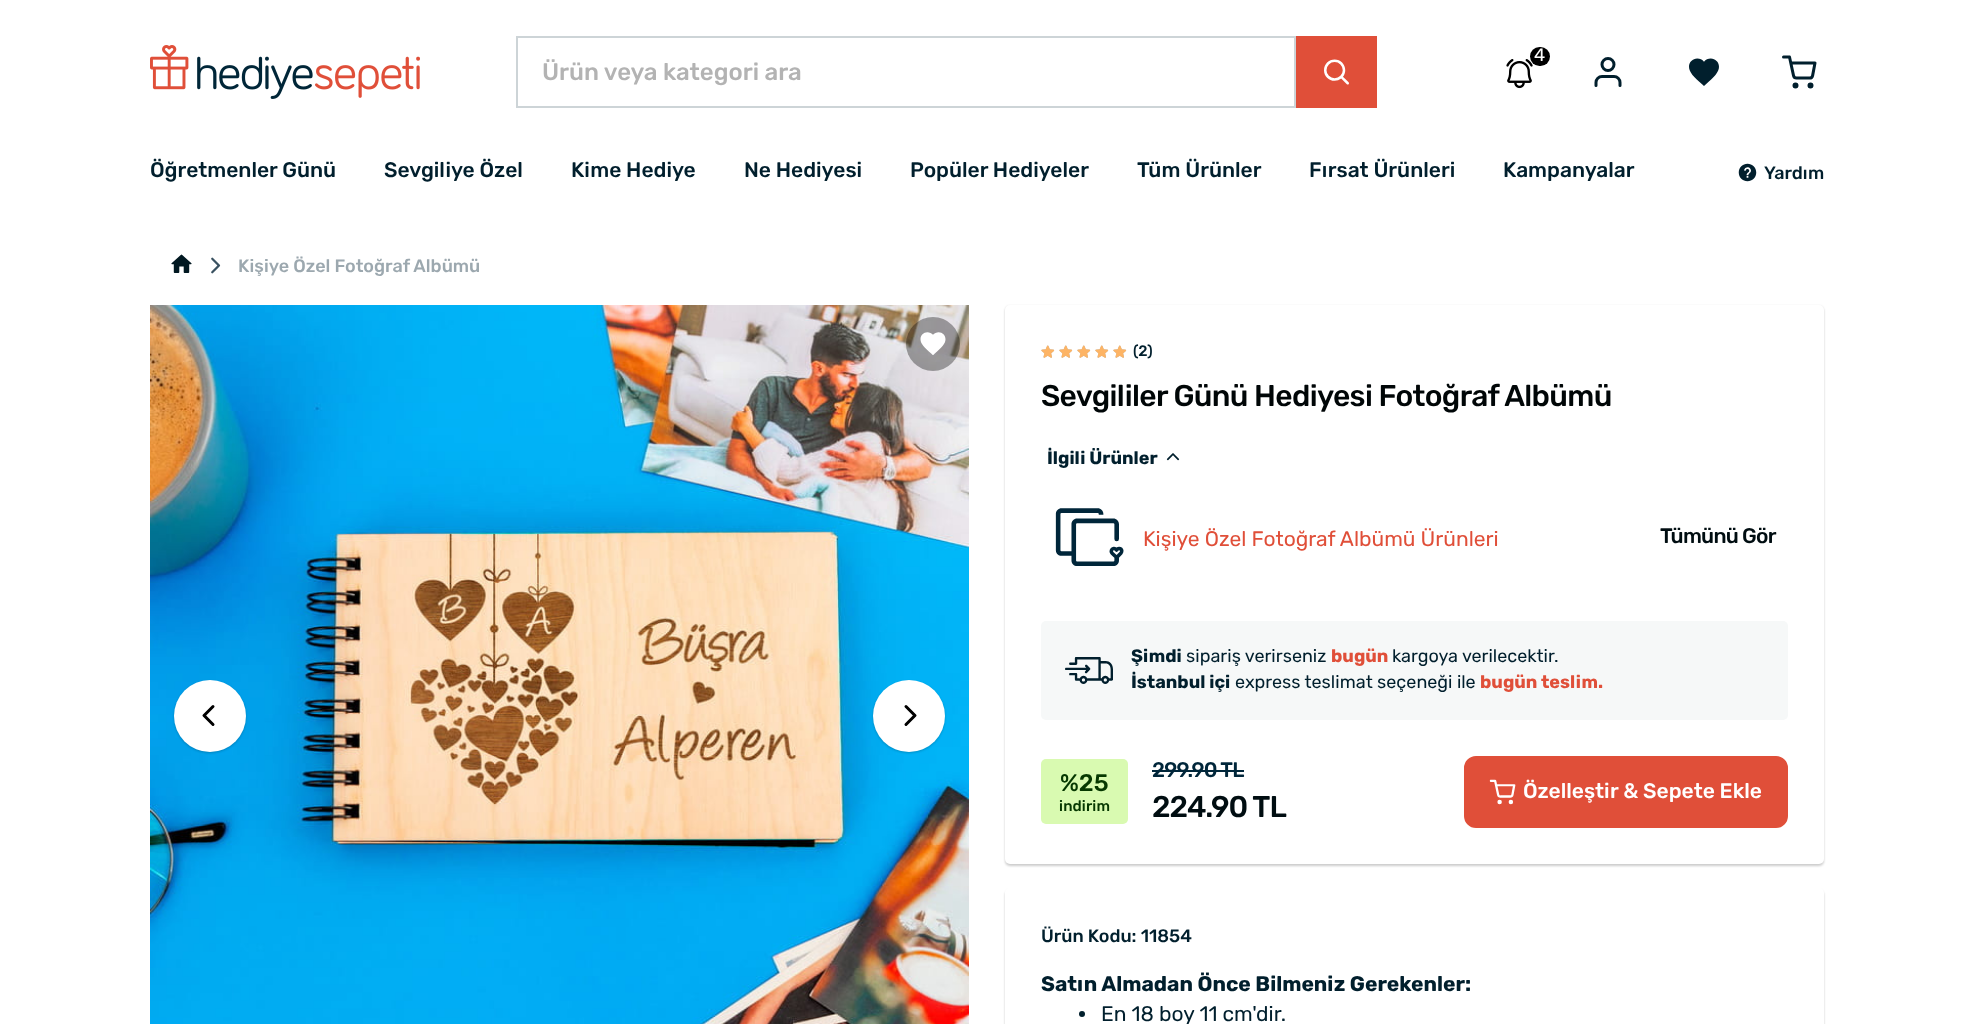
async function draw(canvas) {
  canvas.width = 1974
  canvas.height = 1024
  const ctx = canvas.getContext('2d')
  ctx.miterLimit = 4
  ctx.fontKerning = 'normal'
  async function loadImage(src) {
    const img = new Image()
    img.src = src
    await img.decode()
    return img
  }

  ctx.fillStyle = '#fff'
  ctx.fillRect(0, 0, 1974, 1024)
  ctx.drawImage(await loadImage('image0.png'), 150, 45, 270, 54)
  ctx.drawImage(await loadImage('image1.png'), 1506, 59, 27, 30)
  ctx.fillStyle = '#000'
  ctx.beginPath()
  ctx.roundRect(1530, 47, 20, 19, 9.5)
  ctx.fill()
  ctx.font = '18px Rubik'
  ctx.fillStyle = '#fff'
  ctx.fillText('4', 1534, 61)
  ctx.drawImage(await loadImage('image2.png'), 1594, 57, 28, 30)
  ctx.drawImage(await loadImage('image3.png'), 1689, 58, 30, 28)
  ctx.drawImage(await loadImage('image4.png'), 1782, 55, 35, 34)
  ctx.strokeStyle = '#cdd4d7'
  ctx.lineWidth = 2
  ctx.strokeRect(517, 37, 778, 70)
  ctx.font = '500 24px Rubik'
  ctx.fillStyle = '#b3b3b3'
  ctx.fillText('Ürün veya kategori ara', 542, 80)
  ctx.fillStyle = '#e04f39'
  ctx.fillRect(1296, 36, 81, 72)
  ctx.drawImage(await loadImage('image5.png'), 1324, 59, 25, 26)
  ctx.font = '500 21px Rubik'
  ctx.fillStyle = '#011f2d'
  ctx.fillText('Öğretmenler Günü', 150, 177)
  ctx.fillText('Sevgiliye Özel', 384, 177)
  ctx.fillText('Kime Hediye', 571, 177)
  ctx.fillText('Ne Hediyesi', 744, 177)
  ctx.fillText('Popüler Hediyeler', 910, 177)
  ctx.fillText('Tüm Ürünler', 1137, 177)
  ctx.fillText('Fırsat Ürünleri', 1309, 177)
  ctx.fillText('Kampanyalar', 1503, 177)
  ctx.drawImage(await loadImage('image6.png'), 1738, 163, 19, 19)
  ctx.font = '500 18px Rubik'
  ctx.fillText('Yardım', 1764, 179)
  ctx.drawImage(await loadImage('image7.png'), 171, 254, 21, 19)
  ctx.drawImage(await loadImage('image8.png'), 211, 257, 10, 17)
  ctx.fillStyle = '#9ca8af'
  ctx.fillText('Kişiye Özel Fotoğraf Albümü', 238, 272)
  ctx.drawImage(await loadImage('image9.png'), 150, 305, 819, 719)
  ctx.fillStyle = '#00000033'
  ctx.filter = 'blur(1px)'
  ctx.beginPath()
  ctx.roundRect(174, 681, 72, 72, 36)
  ctx.fill()
  ctx.filter = 'none'
  ctx.fillStyle = '#fff'
  ctx.beginPath()
  ctx.arc(210, 716, 36, 0, 2 * Math.PI)
  ctx.fill()
  ctx.drawImage(await loadImage('image10.png'), 202, 705, 13, 21)
  ctx.fillStyle = '#00000033'
  ctx.filter = 'blur(1px)'
  ctx.beginPath()
  ctx.roundRect(873, 681, 72, 72, 36)
  ctx.fill()
  ctx.filter = 'none'
  ctx.fillStyle = '#fff'
  ctx.beginPath()
  ctx.arc(909, 716, 36, 0, 2 * Math.PI)
  ctx.fill()
  ctx.drawImage(await loadImage('image11.png'), 904, 705, 13, 21)
  ctx.fillStyle = '#00000057'
  ctx.beginPath()
  ctx.arc(933, 344, 27, 0, 2 * Math.PI)
  ctx.fill()
  ctx.drawImage(await loadImage('image12.png'), 920, 332, 26, 23)
  ctx.fillStyle = '#00000033'
  ctx.filter = 'blur(1px)'
  ctx.beginPath()
  ctx.roundRect(1005, 306, 819, 560, 5)
  ctx.fill()
  ctx.filter = 'none'
  ctx.fillStyle = '#fff'
  ctx.beginPath()
  ctx.roundRect(1005, 305, 819, 559, 5)
  ctx.fill()
  ctx.drawImage(await loadImage('image13.png'), 1041, 345, 14, 13)
  ctx.drawImage(await loadImage('image14.png'), 1041, 345, 14, 13)
  ctx.drawImage(await loadImage('image13.png'), 1059, 345, 14, 13)
  ctx.drawImage(await loadImage('image14.png'), 1059, 345, 14, 13)
  ctx.drawImage(await loadImage('image13.png'), 1077, 345, 14, 13)
  ctx.drawImage(await loadImage('image14.png'), 1077, 345, 14, 13)
  ctx.drawImage(await loadImage('image13.png'), 1095, 345, 14, 13)
  ctx.drawImage(await loadImage('image14.png'), 1095, 345, 14, 13)
  ctx.drawImage(await loadImage('image13.png'), 1113, 345, 14, 13)
  ctx.drawImage(await loadImage('image14.png'), 1113, 345, 14, 13)
  ctx.font = '500 15px Rubik'
  ctx.fillStyle = '#011f2d'
  ctx.fillText('(2)', 1133, 356)
  ctx.letterSpacing = '-0.65px'
  ctx.font = '500 30px Rubik'
  ctx.fillStyle = '#000607'
  ctx.fillText('Sevgililer Günü Hediyesi Fotoğraf Albümü', 1041, 406)
  ctx.letterSpacing = '0px'
  ctx.font = 'bold 18px Rubik'
  ctx.fillStyle = '#011f2d'
  ctx.fillText('İlgili Ürünler', 1047, 464)
  ctx.drawImage(await loadImage('image15.png'), 1166, 453, 14, 8)
  ctx.drawImage(await loadImage('image16.png'), 1055, 508, 69, 58)
  ctx.font = '21px Rubik'
  ctx.fillStyle = '#e04f39'
  ctx.fillText('Kişiye Özel Fotoğraf Albümü Ürünleri', 1143, 546)
  ctx.letterSpacing = '-0.75px'
  ctx.font = '500 21px Rubik'
  ctx.fillStyle = '#000d11'
  ctx.fillText('Tümünü Gör', 1660, 543)
  ctx.fillStyle = '#f6f8f8'
  ctx.beginPath()
  ctx.roundRect(1041, 621, 747, 99, 5)
  ctx.fill()
  ctx.drawImage(await loadImage('image17.png'), 1065, 657, 48, 27)
  ctx.letterSpacing = '0px'
  ctx.font = 'bold 18px Rubik'
  ctx.fillStyle = '#011f2d'
  ctx.fillText('Şimdi', 1131, 662)
  ctx.font = '18px Rubik'
  ctx.fillText('sipariş verirseniz', 1186, 662)
  ctx.font = 'bold 18px Rubik'
  ctx.fillStyle = '#e04f39'
  ctx.fillText('bugün', 1331, 662)
  ctx.font = '18px Rubik'
  ctx.fillStyle = '#011f2d'
  ctx.fillText('kargoya verilecektir.', 1392, 662)
  ctx.font = 'bold 18px Rubik'
  ctx.fillText('İstanbul içi', 1131, 688)
  ctx.font = '18px Rubik'
  ctx.fillText('express teslimat seçeneği ile', 1235, 688)
  ctx.font = 'bold 18px Rubik'
  ctx.fillStyle = '#e04f39'
  ctx.fillText('bugün teslim.', 1480, 688)
  ctx.fillStyle = '#d9fab1'
  ctx.beginPath()
  ctx.roundRect(1041, 759, 87, 65, 5)
  ctx.fill()
  ctx.font = '500 24px Rubik'
  ctx.fillStyle = '#063800'
  ctx.fillText('%25', 1060, 791)
  ctx.font = '500 15px Rubik'
  ctx.fillText('indirim', 1059, 811)
  ctx.letterSpacing = '-0.75px'
  ctx.font = '500 21px Rubik'
  ctx.fillStyle = '#00263a'
  ctx.fillText('299.90 TL', 1152, 777)
  ctx.fillRect(1152, 770, 92, 2)
  ctx.letterSpacing = '-1px'
  ctx.font = '500 30px Rubik'
  ctx.fillStyle = '#000d11'
  ctx.fillText('224.90 TL', 1152, 817)
  ctx.fillStyle = '#e04f39'
  ctx.beginPath()
  ctx.roundRect(1465, 757, 322, 70, 11)
  ctx.fill()
  ctx.strokeStyle = '#e04f39'
  ctx.stroke()
  ctx.drawImage(await loadImage('image18.png'), 1489, 779, 27, 26)
  ctx.letterSpacing = '0px'
  ctx.font = '500 21px Rubik'
  ctx.fillStyle = '#fff'
  ctx.fillText('Özelleştir & Sepete Ekle', 1523, 798)
  ctx.save()
  ctx.beginPath()
  ctx.moveTo(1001, 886)
  ctx.lineTo(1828, 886)
  ctx.lineTo(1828, 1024)
  ctx.lineTo(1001, 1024)
  ctx.closePath()
  ctx.moveTo(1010, 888)
  ctx.lineTo(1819, 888)
  ctx.bezierCurveTo(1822, 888, 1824, 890, 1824, 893)
  ctx.lineTo(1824, 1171)
  ctx.bezierCurveTo(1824, 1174, 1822, 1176, 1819, 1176)
  ctx.lineTo(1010, 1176)
  ctx.bezierCurveTo(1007, 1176, 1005, 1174, 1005, 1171)
  ctx.lineTo(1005, 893)
  ctx.bezierCurveTo(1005, 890, 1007, 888, 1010, 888)
  ctx.closePath()
  ctx.clip('evenodd')
  ctx.fillStyle = '#00000033'
  ctx.filter = 'blur(1px)'
  ctx.beginPath()
  ctx.roundRect(1005, 890, 819, 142, 5)
  ctx.fill()
  ctx.filter = 'none'
  ctx.restore()
  ctx.font = '500 18px Rubik'
  ctx.fillStyle = '#011f2d'
  ctx.fillText('Ürün Kodu: 11854', 1041, 942)
  ctx.font = 'bold 21px Rubik'
  ctx.fillText('Satın Almadan Önce Bilmeniz Gerekenler:', 1041, 991)
  ctx.beginPath()
  ctx.arc(1082, 1014, 3, 0, 2 * Math.PI)
  ctx.fill()
  ctx.font = '21px Rubik'
  ctx.fillText('En 18 boy 11 cm\'dir.', 1101, 1021)
}

draw(document.querySelector('canvas'))
